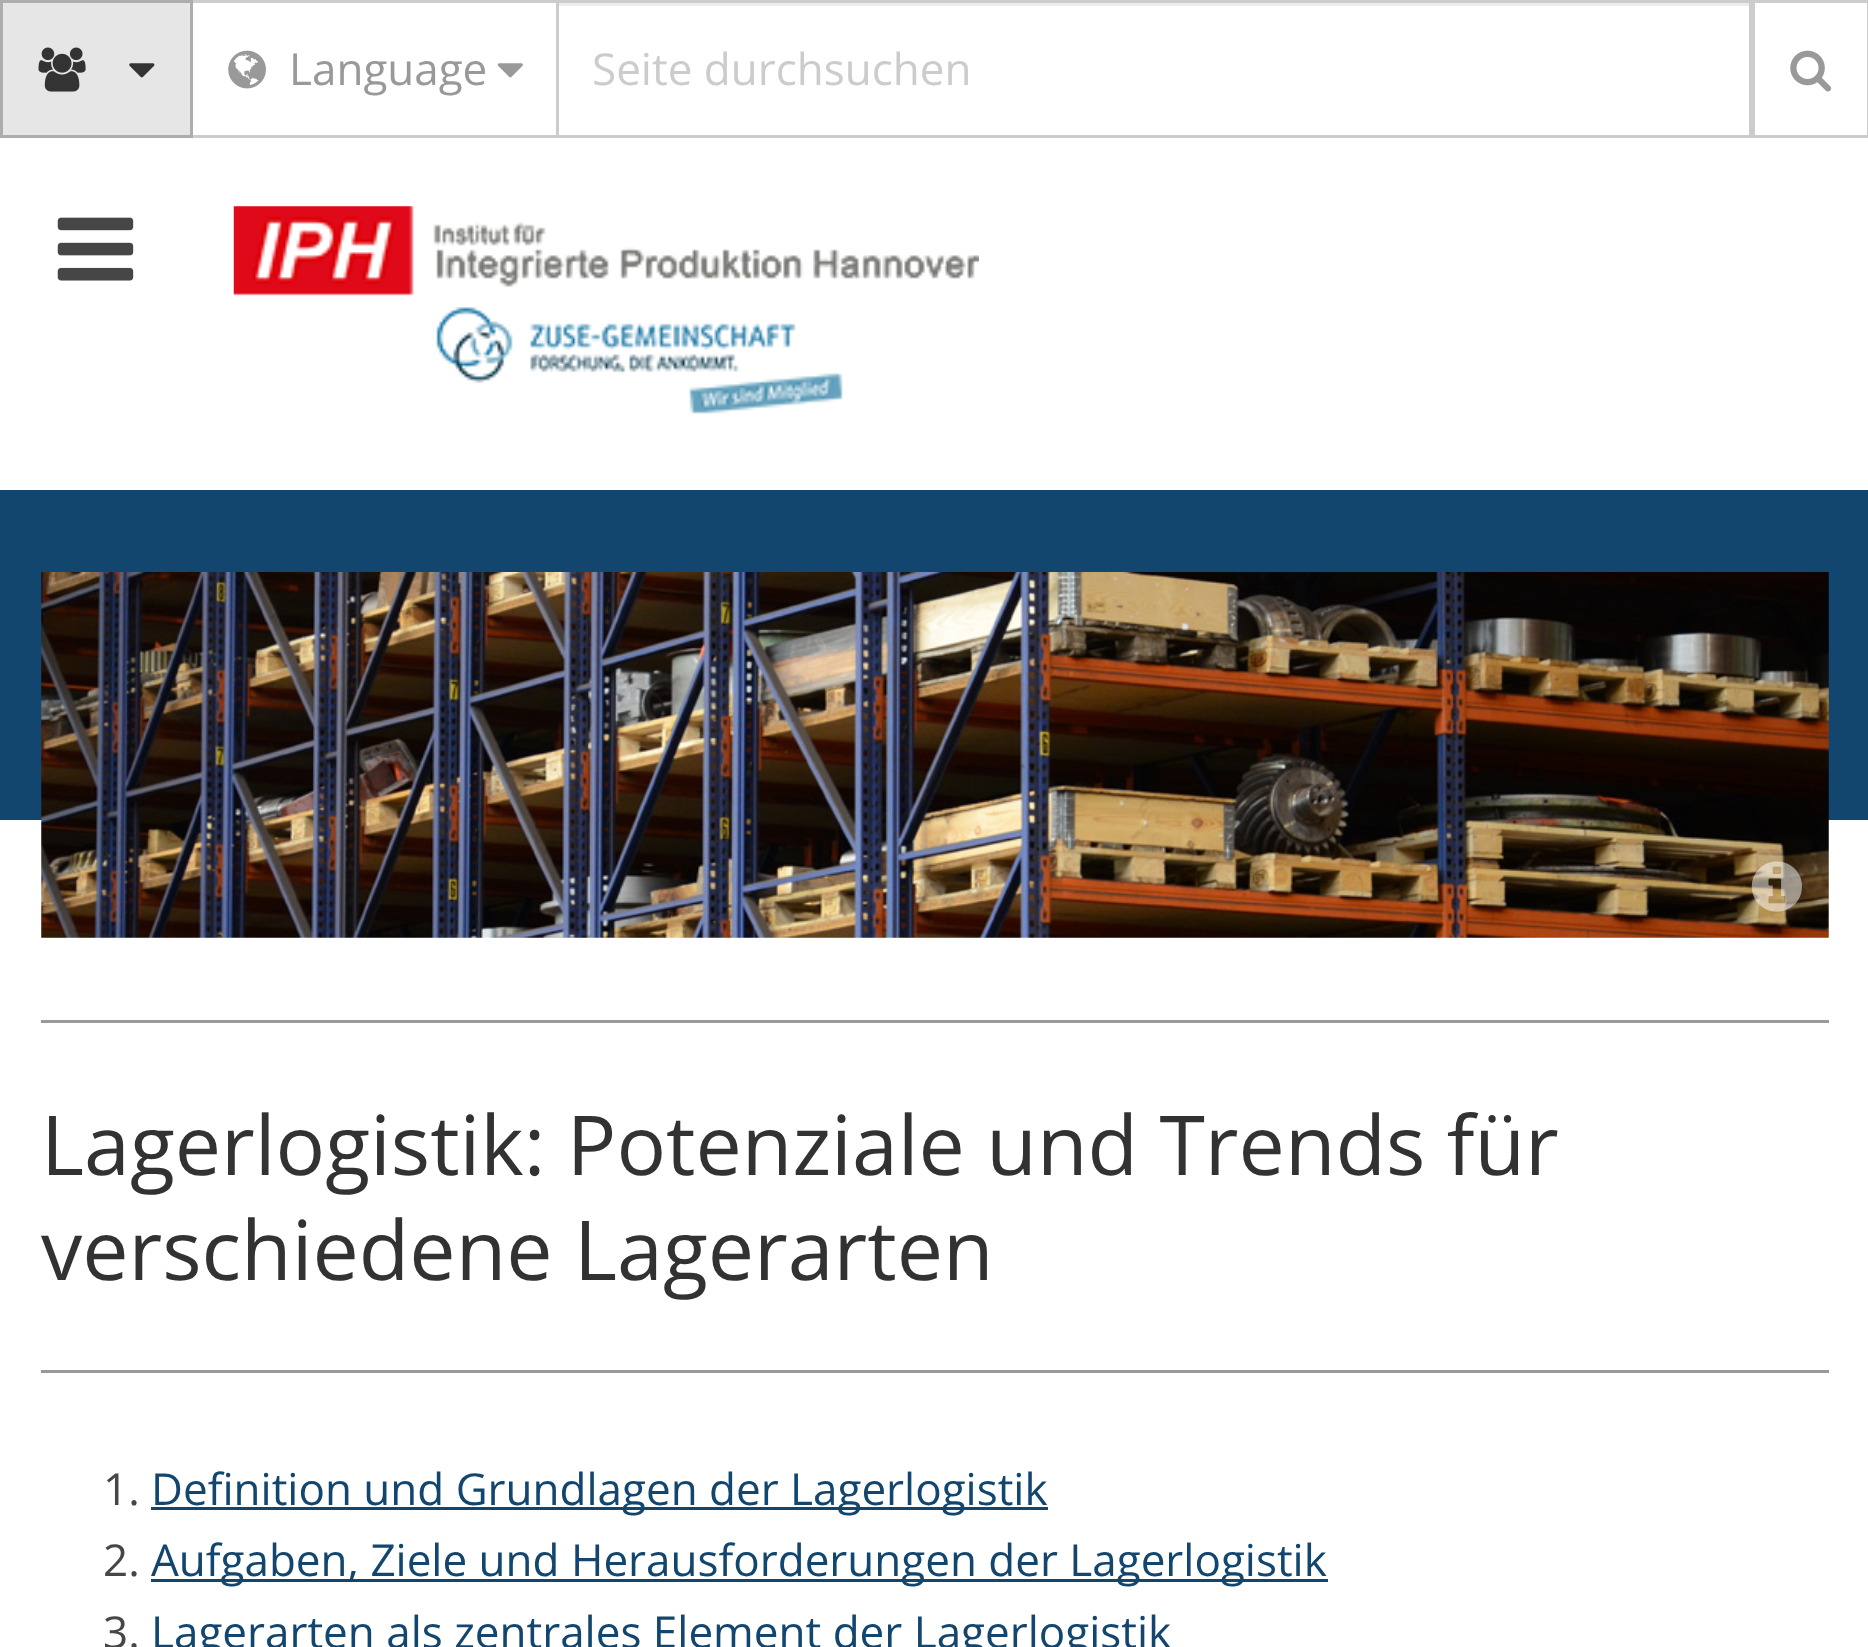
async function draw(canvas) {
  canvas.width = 1868
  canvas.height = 1647
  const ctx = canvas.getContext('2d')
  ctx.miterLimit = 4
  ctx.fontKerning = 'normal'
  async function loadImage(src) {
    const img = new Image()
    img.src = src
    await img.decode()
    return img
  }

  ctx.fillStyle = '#fff'
  ctx.fillRect(0, 0, 1868, 1647)
  ctx.fillStyle = '#e6e6e6'
  ctx.beginPath()
  ctx.rect(1.5, 1.5, 190, 135)
  ctx.fill()
  ctx.strokeStyle = '#adadad'
  ctx.lineWidth = 3
  ctx.stroke()
  ctx.drawImage(await loadImage('image0.png'), 38, 47, 48, 45)
  ctx.drawImage(await loadImage('image1.png'), 129, 63, 26, 15)
  ctx.fillStyle = '#ccc'
  ctx.fillRect(193, 0, 363, 3)
  ctx.fillRect(193, 135, 363, 3)
  ctx.drawImage(await loadImage('image2.png'), 228, 50, 38, 39)
  ctx.font = '44px Open Sans'
  ctx.fillStyle = '#999'
  ctx.fillText('Language', 289, 85)
  ctx.drawImage(await loadImage('image3.png'), 497, 63, 26, 15)
  ctx.fillStyle = '#ececec'
  ctx.fillRect(558, 3, 1191, 3)
  ctx.strokeStyle = '#ccc'
  ctx.strokeRect(557.5, 1.5, 1193, 135)
  ctx.fillStyle = '#ccc'
  ctx.fillText('Seite durchsuchen', 592, 85)
  ctx.strokeRect(1753.5, 1.5, 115, 135)
  ctx.drawImage(await loadImage('image4.png'), 1790, 50, 42, 42)
  ctx.drawImage(await loadImage('image5.png'), 57, 217, 77, 64)
  ctx.drawImage(await loadImage('image6.png'), 233, 206, 746, 208)
  ctx.fillStyle = '#12466f'
  ctx.fillRect(0, 490, 1868, 330)
  ctx.drawImage(await loadImage('image7.png'), 41, 572, 1788, 366)
  ctx.drawImage(await loadImage('image8.png'), 1751, 861, 51, 51)
  ctx.fillStyle = '#999'
  ctx.fillRect(41, 1020, 1788, 3)
  ctx.fillRect(41, 1370, 1788, 3)
  ctx.font = '82.5px Open Sans'
  ctx.fillStyle = '#323232'
  ctx.fillText('Lagerlogistik: Potenziale und Trends für', 41, 1175)
  ctx.fillText('verschiedene Lagerarten', 41, 1280)
  ctx.font = '44px Open Sans'
  ctx.fillStyle = '#464646'
  ctx.fillText('1.', 103, 1505)
  ctx.fillStyle = '#12466f'
  ctx.fillRect(151, 1507, 897, 3)
  ctx.fillText('Definition und Grundlagen der Lagerlogistik', 151, 1505)
  ctx.fillStyle = '#464646'
  ctx.fillText('2.', 103, 1576)
  ctx.fillStyle = '#12466f'
  ctx.fillRect(151, 1579, 1177, 3)
  ctx.fillText('Aufgaben, Ziele und Herausforderungen der Lagerlogistik', 151, 1576)
  ctx.fillStyle = '#464646'
  ctx.fillText('3.', 103, 1648)
  ctx.fillStyle = '#12466f'
  ctx.fillText('Lagerarten als zentrales Element der Lagerlogistik', 151, 1648)
}

draw(document.querySelector('canvas'))
